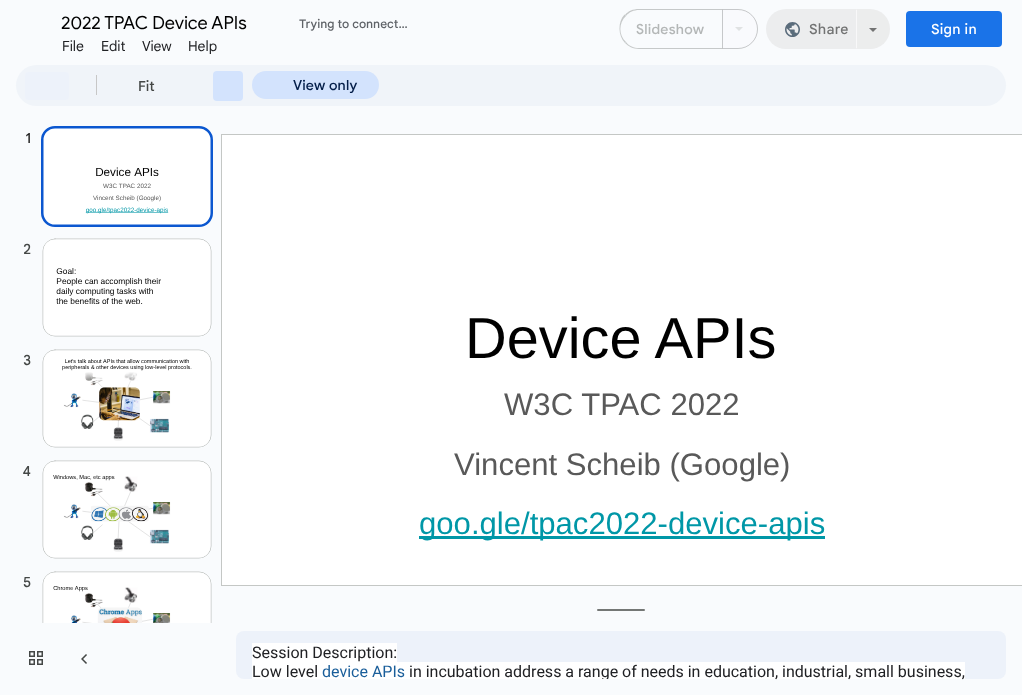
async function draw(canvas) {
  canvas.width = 1022
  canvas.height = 695
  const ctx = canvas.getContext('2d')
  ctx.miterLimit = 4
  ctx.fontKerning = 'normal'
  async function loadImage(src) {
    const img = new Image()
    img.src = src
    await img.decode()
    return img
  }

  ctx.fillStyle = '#f9fbfd'
  ctx.fillRect(0, 0, 1022, 695)
  ctx.font = '18px "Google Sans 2"'
  ctx.fillStyle = '#000'
  ctx.fillText('2022 TPAC Device APIs', 61, 29)
  ctx.font = '500 12px Google Sans'
  ctx.fillStyle = '#5f6368'
  ctx.fillText('Trying to connect…', 299, 28)
  ctx.fillStyle = '#c6c9c9'
  ctx.beginPath()
  ctx.moveTo(639, 9)
  ctx.bezierCurveTo(633, 9, 628, 11, 625, 15)
  ctx.lineTo(626, 16)
  ctx.bezierCurveTo(629, 12, 634, 10, 639, 10)
  ctx.lineTo(722, 10)
  ctx.lineTo(723, 9)
  ctx.closePath()
  ctx.fill()
  ctx.beginPath()
  ctx.moveTo(723, 49)
  ctx.lineTo(722, 48)
  ctx.lineTo(639, 48)
  ctx.bezierCurveTo(634, 48, 629, 46, 626, 42)
  ctx.lineTo(625, 43)
  ctx.bezierCurveTo(628, 46, 633, 49, 639, 49)
  ctx.closePath()
  ctx.fill()
  ctx.beginPath()
  ctx.moveTo(624.5, 14.5)
  ctx.bezierCurveTo(617.5, 22, 618, 35.5, 625, 43)
  ctx.lineTo(626, 42)
  ctx.bezierCurveTo(618.5, 35, 618.5, 23, 626, 16)
  ctx.closePath()
  ctx.fill()
  ctx.letterSpacing = '0.25px'
  ctx.font = '500 14px "Google Sans 2"'
  ctx.fillStyle = '#b4b7b7'
  ctx.fillText('Slideshow', 636, 34)
  ctx.fillStyle = '#f9fbfd61'
  ctx.beginPath()
  ctx.roundRect(722, 9, 36, 40, [0, 20, 20, 0])
  ctx.fill()
  ctx.beginPath()
  ctx.roundRect(722.5, 9.5, 35, 39, [0, 19.5, 19.5, 0])
  ctx.strokeStyle = '#74777561'
  ctx.stroke()
  ctx.fillStyle = '#e0e2e3'
  ctx.beginPath()
  ctx.moveTo(735, 27)
  ctx.lineTo(743, 27)
  ctx.lineTo(739, 31)
  ctx.closePath()
  ctx.fill()
  ctx.fillStyle = '#ecedee'
  ctx.beginPath()
  ctx.roundRect(766, 9, 91, 40, [20, 0, 0, 20])
  ctx.fill()
  ctx.drawImage(await loadImage('image0.png'), 785, 22, 15, 15)
  ctx.font = '500 14px Google Sans'
  ctx.fillStyle = '#727373'
  ctx.fillText('Share', 809, 34)
  ctx.fillStyle = '#e4e4e49e'
  ctx.beginPath()
  ctx.roundRect(856, 9, 34, 40, [0, 20, 20, 0])
  ctx.fill()
  ctx.fillStyle = '#f8f8f9'
  ctx.beginPath()
  ctx.moveTo(857, 10)
  ctx.lineTo(856, 9)
  ctx.lineTo(856, 49)
  ctx.lineTo(857, 48)
  ctx.closePath()
  ctx.fill()
  ctx.fillStyle = '#727373'
  ctx.beginPath()
  ctx.moveTo(869, 28)
  ctx.lineTo(877, 28)
  ctx.lineTo(873, 32)
  ctx.closePath()
  ctx.fill()
  ctx.fillStyle = '#1a73e8'
  ctx.beginPath()
  ctx.roundRect(906, 11, 96, 36, 4)
  ctx.fill()
  ctx.fillStyle = '#fff'
  ctx.fillText('Sign in', 931, 34)
  ctx.letterSpacing = '0px'
  ctx.font = '14px Google Sans'
  ctx.fillStyle = '#202124'
  ctx.fillText('File', 62, 51)
  ctx.fillText('Edit', 101, 51)
  ctx.fillText('View', 142, 51)
  ctx.fillText('Help', 188, 51)
  ctx.fillStyle = '#f0f4f9'
  ctx.beginPath()
  ctx.roundRect(16, 65, 990, 41, 20.5)
  ctx.fill()
  ctx.fillStyle = '#edf2fa'
  ctx.beginPath()
  ctx.roundRect(25, 72, 44, 28, 4)
  ctx.fill()
  ctx.fillStyle = '#c7c7c7'
  ctx.fillRect(96, 75, 1, 20)
  ctx.font = '500 14px Google Sans'
  ctx.fillStyle = '#444746'
  ctx.fillText('Fit', 138, 91)
  ctx.fillStyle = '#d3e3fd'
  ctx.beginPath()
  ctx.roundRect(213, 71, 30, 30, 4)
  ctx.fill()
  ctx.beginPath()
  ctx.roundRect(252, 71, 127, 28, 14)
  ctx.fill()
  ctx.letterSpacing = '0.25px'
  ctx.font = '500 14px "Google Sans 2"'
  ctx.fillStyle = '#041e49'
  ctx.fillText('View only', 293, 90)
  ctx.drawImage(await loadImage('image1.png'), 23, 126, 190, 497)
  ctx.drawImage(await loadImage('image2.png'), 29, 651, 14, 14)
  ctx.drawImage(await loadImage('image3.png'), 81, 654, 6, 10)
  ctx.strokeStyle = '#c4c7c5'
  ctx.strokeRect(221.5, 134.5, 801, 451)
  ctx.fillStyle = '#fff'
  ctx.fillRect(222, 135, 800, 450)
  ctx.fillStyle = '#0097a7'
  ctx.fillRect(419, 536, 406, 3)
  ctx.letterSpacing = '0px'
  ctx.font = '57.75px Liberation Sans'
  ctx.fillStyle = '#000'
  ctx.fillText('Device APIs', 465, 358)
  ctx.font = '31.1px Liberation Sans'
  ctx.fillStyle = '#595959'
  ctx.fillText('W3C TPAC 2022', 504, 415)
  ctx.fillText('Vincent Scheib (Google)', 454, 475)
  ctx.fillStyle = '#0097a7'
  ctx.fillText('goo.gle/tpac2022-device-apis', 419, 534)
  ctx.fillStyle = '#747775'
  ctx.beginPath()
  ctx.roundRect(597, 609, 48, 2, 1)
  ctx.fill()
  ctx.fillStyle = '#edf2fa'
  ctx.beginPath()
  ctx.roundRect(236, 631, 770, 48, 8)
  ctx.fill()
  ctx.fillStyle = '#fff'
  ctx.fillRect(252, 643, 145, 19)
  ctx.font = '16px Roboto'
  ctx.fillStyle = '#202124'
  ctx.fillText('Session Description:', 252, 658)
  ctx.fillStyle = '#fff'
  ctx.fillRect(252, 662, 713, 17)
  ctx.fillStyle = '#202124'
  ctx.fillText('Low level', 252, 677)
  ctx.fillStyle = '#1a5e9a'
  ctx.fillText('device APIs', 322, 677)
  ctx.fillStyle = '#202124'
  ctx.fillText('in incubation address a', 409, 677)
  ctx.save()
  ctx.beginPath()
  ctx.roundRect(236, 631, 770, 48, 8)
  ctx.clip()
  ctx.fillText('range', 578, 677)
  ctx.restore()
  ctx.fillText('of needs in education, industrial, small business,', 622, 677)
}

draw(document.querySelector('canvas'))
